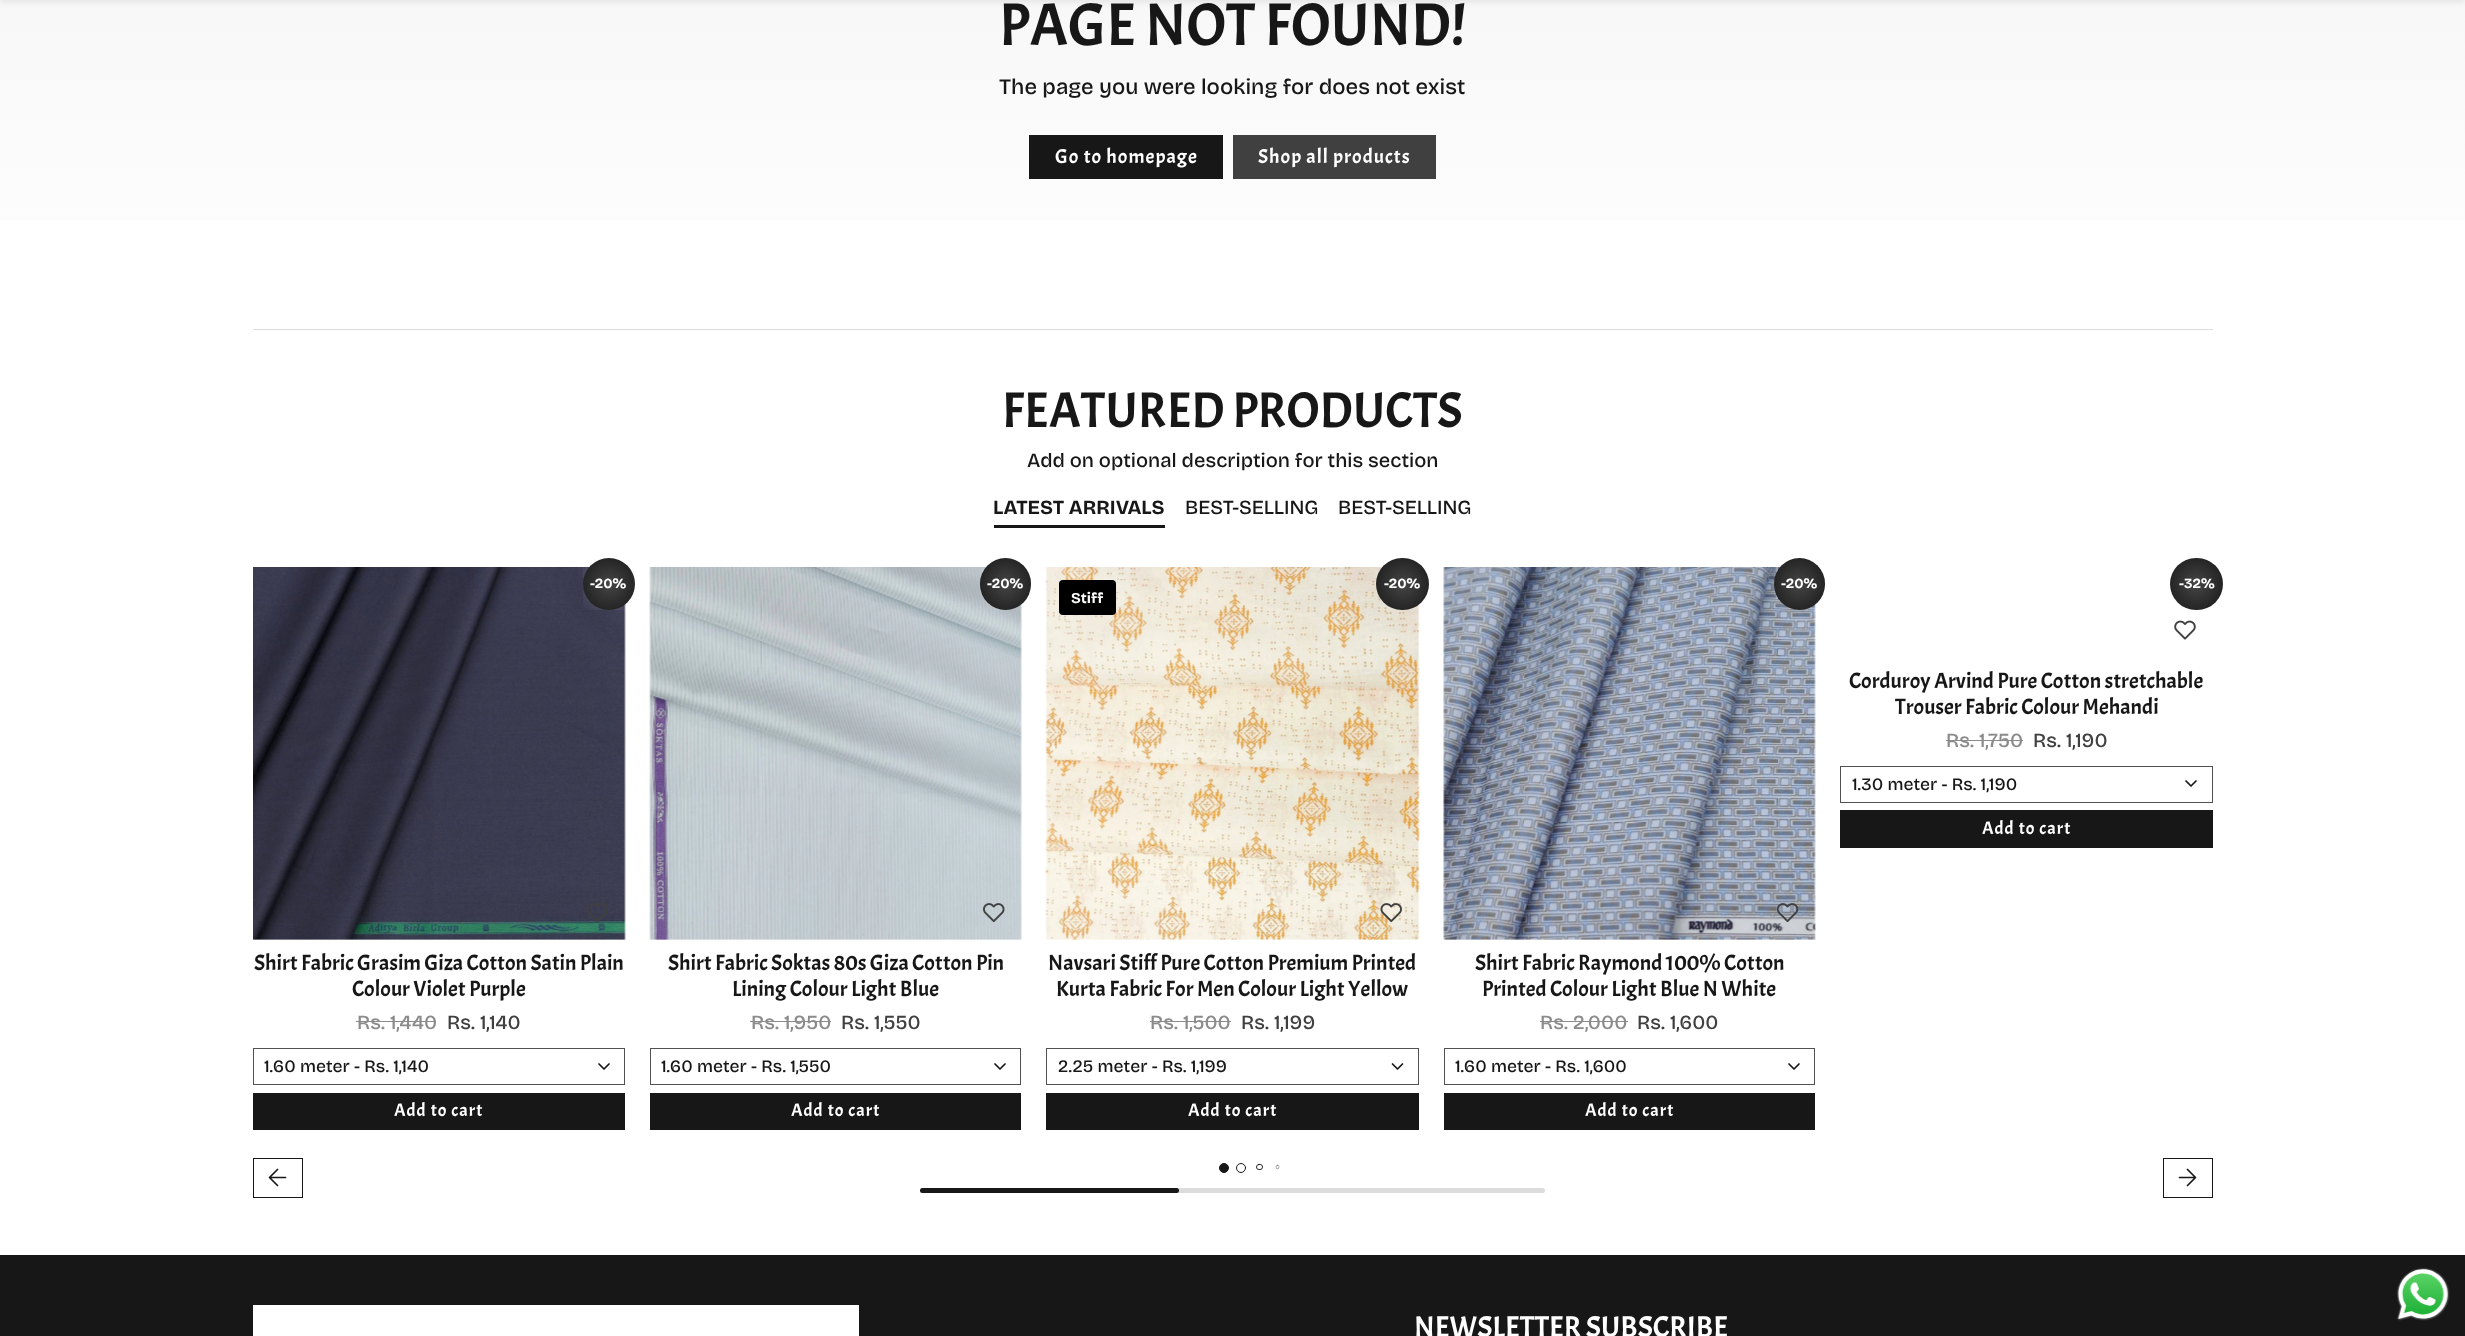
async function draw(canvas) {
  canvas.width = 2465
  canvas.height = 1336
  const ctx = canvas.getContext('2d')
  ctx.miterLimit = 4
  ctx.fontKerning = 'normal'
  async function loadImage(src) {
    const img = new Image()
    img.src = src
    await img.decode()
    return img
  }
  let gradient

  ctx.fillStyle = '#fff'
  ctx.fillRect(0, 0, 2465, 1336)
  gradient = ctx.createLinearGradient(1233, -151, 1233, 329)
  gradient.addColorStop(0, '#f4f4f4')
  gradient.addColorStop(1, '#fff')
  ctx.fillStyle = gradient
  ctx.fillRect(0, 0, 2465, 220)
  ctx.fillStyle = '#17171712'
  ctx.filter = 'blur(2.5px)'
  ctx.beginPath()
  ctx.rect(0, -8, 2465, 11)
  ctx.fill()
  ctx.filter = 'none'
  ctx.font = '60px Acme'
  ctx.fillStyle = '#171717'
  ctx.fillText('PAGE NOT FOUND!', 999, 45)
  ctx.font = '500 22px Bricolage Grotesque'
  ctx.fillText('The page you were looking for does not exist', 999, 94)
  ctx.fillRect(1029, 135, 194, 44)
  ctx.letterSpacing = '1px'
  ctx.font = '20px Acme'
  ctx.fillStyle = '#fff'
  ctx.fillText('Go to homepage', 1055, 163)
  ctx.fillStyle = '#404040'
  ctx.fillRect(1233, 135, 203, 44)
  ctx.fillStyle = '#fff'
  ctx.fillText('Shop all products', 1258, 163)
  ctx.fillStyle = '#dcdcdc'
  ctx.fillRect(253, 329, 1960, 1)
  ctx.letterSpacing = '0px'
  ctx.font = '50px Acme'
  ctx.fillStyle = '#171717'
  ctx.fillText('FEATURED PRODUCTS', 1002, 427)
  ctx.font = '500 20px "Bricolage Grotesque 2"'
  ctx.fillText('Add on optional description for this section', 1027, 467)
  ctx.fillRect(994, 525, 171, 3)
  ctx.font = 'bold 20px Bricolage Grotesque'
  ctx.fillText('LATEST ARRIVALS', 993, 514)
  ctx.font = '500 20px "Bricolage Grotesque 2"'
  ctx.fillText('BEST-SELLING', 1185, 514)
  ctx.fillText('BEST-SELLING', 1338, 514)
  ctx.drawImage(await loadImage('image0.png'), 253, 567, 373, 373)
  ctx.beginPath()
  ctx.arc(609, 584, 26, 0, 2 * Math.PI)
  ctx.fill()
  gradient = ctx.createRadialGradient(609, 584, 0, 609, 584, 37)
  gradient.addColorStop(0, '#ffffff33')
  gradient.addColorStop(1, '#ffffff00')
  ctx.fillStyle = gradient
  ctx.fillRect(583, 558, 52, 52)
  ctx.font = 'bold 14px "Bricolage Grotesque 2"'
  ctx.fillStyle = '#fff'
  ctx.fillText('-20%', 590, 588)
  ctx.drawImage(await loadImage('image1.png'), 587, 903, 22, 19)
  ctx.font = '22px Acme'
  ctx.fillStyle = '#171717'
  ctx.fillText('Shirt Fabric Grasim Giza Cotton Satin Plain', 254, 970)
  ctx.fillText('Colour Violet Purple', 352, 996)
  ctx.font = '500 20px "Bricolage Grotesque 2"'
  ctx.fillStyle = '#8b8b8b'
  ctx.fillText('Rs. 1,440', 357, 1029)
  ctx.fillRect(356, 1021, 80, 1)
  ctx.fillStyle = '#404040'
  ctx.fillText('Rs. 1,140', 447, 1029)
  ctx.beginPath()
  ctx.moveTo(599, 1064)
  ctx.lineTo(604, 1069)
  ctx.lineTo(609, 1064)
  ctx.strokeStyle = '#171717'
  ctx.lineWidth = 1.7
  ctx.lineCap = 'round'
  ctx.lineJoin = 'round'
  ctx.stroke()
  ctx.strokeStyle = '#515151'
  ctx.lineWidth = 1
  ctx.lineJoin = 'miter'
  ctx.strokeRect(253.5, 1048.5, 371, 36)
  ctx.font = '500 17.5px "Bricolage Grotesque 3"'
  ctx.fillStyle = '#171717'
  ctx.fillText('1.60 meter - Rs. 1,140', 264, 1072)
  ctx.fillRect(253, 1093, 372, 37)
  ctx.letterSpacing = '1px'
  ctx.font = '18px Acme'
  ctx.fillStyle = '#fff'
  ctx.fillText('Add to cart', 394, 1116)
  ctx.drawImage(await loadImage('image2.png'), 649, 567, 373, 373)
  ctx.fillStyle = '#171717'
  ctx.beginPath()
  ctx.roundRect(980, 558, 51, 52, 25.5)
  ctx.fill()
  gradient = ctx.createRadialGradient(1006, 568.22, 0, 1006, 568.22, 36)
  gradient.addColorStop(0, '#ffffff33')
  gradient.addColorStop(1, '#ffffff00')
  ctx.fillStyle = gradient
  ctx.beginPath()
  ctx.rect(980, 558, 51, 52)
  ctx.save()
  ctx.clip()
  ctx.scale(1, 37 / 36)
  ctx.fillRect(0, 0, 2465, 1300)
  ctx.restore()
  ctx.letterSpacing = '0px'
  ctx.font = 'bold 14px "Bricolage Grotesque 2"'
  ctx.fillStyle = '#fff'
  ctx.fillText('-20%', 987, 588)
  ctx.drawImage(await loadImage('image3.png'), 983, 903, 22, 20)
  ctx.font = '22px Acme'
  ctx.fillStyle = '#171717'
  ctx.fillText('Shirt Fabric Soktas 80s Giza Cotton Pin', 668, 970)
  ctx.fillText('Lining Colour Light Blue', 732, 996)
  ctx.font = '500 20px "Bricolage Grotesque 2"'
  ctx.fillStyle = '#8b8b8b'
  ctx.fillText('Rs. 1,950', 751, 1029)
  ctx.fillRect(750, 1021, 81, 1)
  ctx.fillStyle = '#404040'
  ctx.fillText('Rs. 1,550', 841, 1029)
  ctx.beginPath()
  ctx.moveTo(995, 1064)
  ctx.lineTo(1000, 1069)
  ctx.lineTo(1005, 1064)
  ctx.strokeStyle = '#171717'
  ctx.lineWidth = 1.7
  ctx.lineJoin = 'round'
  ctx.stroke()
  ctx.strokeStyle = '#515151'
  ctx.lineWidth = 1
  ctx.lineJoin = 'miter'
  ctx.strokeRect(650.5, 1048.5, 370, 36)
  ctx.font = '500 17.5px "Bricolage Grotesque 3"'
  ctx.fillStyle = '#171717'
  ctx.fillText('1.60 meter - Rs. 1,550', 661, 1072)
  ctx.fillRect(650, 1093, 371, 37)
  ctx.letterSpacing = '1px'
  ctx.font = '18px Acme'
  ctx.fillStyle = '#fff'
  ctx.fillText('Add to cart', 791, 1116)
  ctx.drawImage(await loadImage('image4.png'), 1045, 567, 375, 373)
  ctx.fillStyle = '#171717'
  ctx.beginPath()
  ctx.roundRect(1376, 558, 53, 52, 26)
  ctx.fill()
  gradient = ctx.createRadialGradient(1403, 584, 0, 1403, 584, 37)
  gradient.addColorStop(0, '#ffffff33')
  gradient.addColorStop(1, '#ffffff00')
  ctx.fillStyle = gradient
  ctx.fillRect(1376, 558, 53, 52)
  ctx.letterSpacing = '0px'
  ctx.font = 'bold 14px "Bricolage Grotesque 2"'
  ctx.fillStyle = '#fff'
  ctx.fillText('-20%', 1384, 588)
  ctx.drawImage(await loadImage('image5.png'), 1380, 903, 22, 20)
  ctx.fillStyle = '#000'
  ctx.beginPath()
  ctx.roundRect(1059, 580, 57, 35, 4)
  ctx.fill()
  ctx.font = 'bold 15px "Bricolage Grotesque 2"'
  ctx.fillStyle = '#fff'
  ctx.fillText('Stiff', 1071, 603)
  ctx.font = '22px Acme'
  ctx.fillStyle = '#171717'
  ctx.fillText('Navsari Stiff Pure Cotton Premium Printed', 1048, 970)
  ctx.fillText('Kurta Fabric For Men Colour Light Yellow', 1056, 996)
  ctx.font = '500 20px "Bricolage Grotesque 2"'
  ctx.fillStyle = '#8b8b8b'
  ctx.fillText('Rs. 1,500', 1150, 1029)
  ctx.fillRect(1150, 1021, 81, 1)
  ctx.fillStyle = '#404040'
  ctx.fillText('Rs. 1,199', 1241, 1029)
  ctx.beginPath()
  ctx.moveTo(1392.5, 1064)
  ctx.lineTo(1397.5, 1069)
  ctx.lineTo(1402.5, 1064)
  ctx.strokeStyle = '#171717'
  ctx.lineWidth = 1.7
  ctx.lineJoin = 'round'
  ctx.stroke()
  ctx.strokeStyle = '#515151'
  ctx.lineWidth = 1
  ctx.lineJoin = 'miter'
  ctx.strokeRect(1046.5, 1048.5, 372, 36)
  ctx.font = '500 17.5px "Bricolage Grotesque 3"'
  ctx.fillStyle = '#171717'
  ctx.fillText('2.25 meter - Rs. 1,199', 1058, 1072)
  ctx.fillRect(1046, 1093, 373, 37)
  ctx.letterSpacing = '1px'
  ctx.font = '18px Acme'
  ctx.fillStyle = '#fff'
  ctx.fillText('Add to cart', 1188, 1116)
  ctx.drawImage(await loadImage('image6.png'), 1443, 567, 373, 373)
  ctx.fillStyle = '#171717'
  ctx.beginPath()
  ctx.roundRect(1774, 558, 51, 52, 25.5)
  ctx.fill()
  gradient = ctx.createRadialGradient(1799, 568.22, 0, 1799, 568.22, 36)
  gradient.addColorStop(0, '#ffffff33')
  gradient.addColorStop(1, '#ffffff00')
  ctx.fillStyle = gradient
  ctx.beginPath()
  ctx.rect(1774, 558, 51, 52)
  ctx.save()
  ctx.clip()
  ctx.scale(1, 37 / 36)
  ctx.fillRect(0, 0, 2465, 1300)
  ctx.restore()
  ctx.letterSpacing = '0px'
  ctx.font = 'bold 14px "Bricolage Grotesque 2"'
  ctx.fillStyle = '#fff'
  ctx.fillText('-20%', 1781, 588)
  ctx.drawImage(await loadImage('image7.png'), 1776, 903, 23, 20)
  ctx.font = '22px Acme'
  ctx.fillStyle = '#171717'
  ctx.fillText('Shirt Fabric Raymond 100% Cotton', 1475, 970)
  ctx.fillText('Printed Colour Light Blue N White', 1482, 996)
  ctx.font = '500 20px "Bricolage Grotesque 2"'
  ctx.fillStyle = '#8b8b8b'
  ctx.fillText('Rs. 2,000', 1540, 1029)
  ctx.fillRect(1540, 1021, 88, 1)
  ctx.fillStyle = '#404040'
  ctx.fillText('Rs. 1,600', 1637, 1029)
  ctx.beginPath()
  ctx.moveTo(1789, 1064)
  ctx.lineTo(1794, 1069)
  ctx.lineTo(1799, 1064)
  ctx.strokeStyle = '#171717'
  ctx.lineWidth = 1.7
  ctx.lineJoin = 'round'
  ctx.stroke()
  ctx.strokeStyle = '#515151'
  ctx.lineWidth = 1
  ctx.lineJoin = 'miter'
  ctx.strokeRect(1444.5, 1048.5, 370, 36)
  ctx.font = '500 17.5px "Bricolage Grotesque 3"'
  ctx.fillStyle = '#171717'
  ctx.fillText('1.60 meter - Rs. 1,600', 1455, 1072)
  ctx.fillRect(1444, 1093, 371, 37)
  ctx.letterSpacing = '1px'
  ctx.font = '18px Acme'
  ctx.fillStyle = '#fff'
  ctx.fillText('Add to cart', 1585, 1116)
  ctx.fillStyle = '#171717'
  ctx.beginPath()
  ctx.roundRect(2170, 558, 53, 52, 26)
  ctx.fill()
  gradient = ctx.createRadialGradient(2196, 584, 0, 2196, 584, 37)
  gradient.addColorStop(0, '#ffffff33')
  gradient.addColorStop(1, '#ffffff00')
  ctx.fillStyle = gradient
  ctx.fillRect(2170, 558, 53, 52)
  ctx.letterSpacing = '0px'
  ctx.font = 'bold 14px "Bricolage Grotesque 2"'
  ctx.fillStyle = '#fff'
  ctx.fillText('-32%', 2179, 588)
  ctx.drawImage(await loadImage('image8.png'), 2174, 620, 22, 20)
  ctx.font = '22px Acme'
  ctx.fillStyle = '#171717'
  ctx.fillText('Corduroy Arvind Pure Cotton stretchable', 1849, 688)
  ctx.fillText('Trouser Fabric Colour Mehandi', 1895, 714)
  ctx.font = '500 20px "Bricolage Grotesque 2"'
  ctx.fillStyle = '#8b8b8b'
  ctx.fillText('Rs. 1,750', 1946, 747)
  ctx.fillRect(1946, 740, 77, 1)
  ctx.fillStyle = '#404040'
  ctx.fillText('Rs. 1,190', 2033, 747)
  ctx.beginPath()
  ctx.moveTo(2186, 781)
  ctx.lineTo(2191, 786)
  ctx.lineTo(2196, 781)
  ctx.strokeStyle = '#171717'
  ctx.lineWidth = 1.7
  ctx.lineJoin = 'round'
  ctx.stroke()
  ctx.strokeStyle = '#515151'
  ctx.lineWidth = 1
  ctx.lineJoin = 'miter'
  ctx.strokeRect(1840.5, 766.5, 372, 36)
  ctx.font = '500 17.5px "Bricolage Grotesque 3"'
  ctx.fillStyle = '#171717'
  ctx.fillText('1.30 meter - Rs. 1,190', 1852, 790)
  ctx.fillRect(1840, 810, 373, 38)
  ctx.letterSpacing = '1px'
  ctx.font = '18px Acme'
  ctx.fillStyle = '#fff'
  ctx.fillText('Add to cart', 1982, 834)
  ctx.strokeStyle = '#171717'
  ctx.strokeRect(253.5, 1158.5, 49, 39)
  ctx.beginPath()
  ctx.moveTo(285.5, 1177.5)
  ctx.lineTo(270.5, 1177.5)
  ctx.moveTo(277.5, 1169.5)
  ctx.lineTo(269.5, 1177.5)
  ctx.lineTo(277.5, 1185.5)
  ctx.lineWidth = 1.7
  ctx.lineJoin = 'round'
  ctx.stroke()
  ctx.fillStyle = '#171717'
  ctx.beginPath()
  ctx.arc(1224, 1168, 4.5, 0, 2 * Math.PI)
  ctx.fill()
  ctx.lineWidth = 1
  ctx.stroke()
  ctx.beginPath()
  ctx.arc(1241, 1168, 4.5, 0, 2 * Math.PI)
  ctx.stroke()
  ctx.beginPath()
  ctx.roundRect(1256.45, 1164.45, 6.1, 5.1, 2.55)
  ctx.lineWidth = 0.9
  ctx.lineJoin = 'miter'
  ctx.stroke()
  ctx.beginPath()
  ctx.roundRect(1276.2, 1165.2, 2.6, 3.6, 1.3)
  ctx.lineWidth = 0.4
  ctx.stroke()
  ctx.lineWidth = 1
  ctx.strokeRect(2163.5, 1158.5, 49, 39)
  ctx.beginPath()
  ctx.moveTo(2179.5, 1177.5)
  ctx.lineTo(2194.5, 1177.5)
  ctx.moveTo(2187.5, 1169.5)
  ctx.lineTo(2195.5, 1177.5)
  ctx.lineTo(2187.5, 1185.5)
  ctx.lineWidth = 1.7
  ctx.lineJoin = 'round'
  ctx.stroke()
  ctx.fillStyle = '#dcdcdc'
  ctx.beginPath()
  ctx.roundRect(920, 1188, 625, 5, 2.5)
  ctx.fill()
  ctx.fillStyle = '#171717'
  ctx.beginPath()
  ctx.roundRect(920, 1188, 259, 5, 2.5)
  ctx.fill()
  ctx.fillRect(0, 1255, 2465, 81)
  ctx.drawImage(await loadImage('image9.png'), 2396, 1267, 54, 54)
  ctx.fillStyle = '#fff'
  ctx.fillRect(253, 1305, 606, 31)
  ctx.letterSpacing = '0px'
  ctx.font = '30px Acme'
  ctx.fillText('NEWSLETTER SUBSCRIBE', 1414, 1337)
}

draw(document.querySelector('canvas'))
